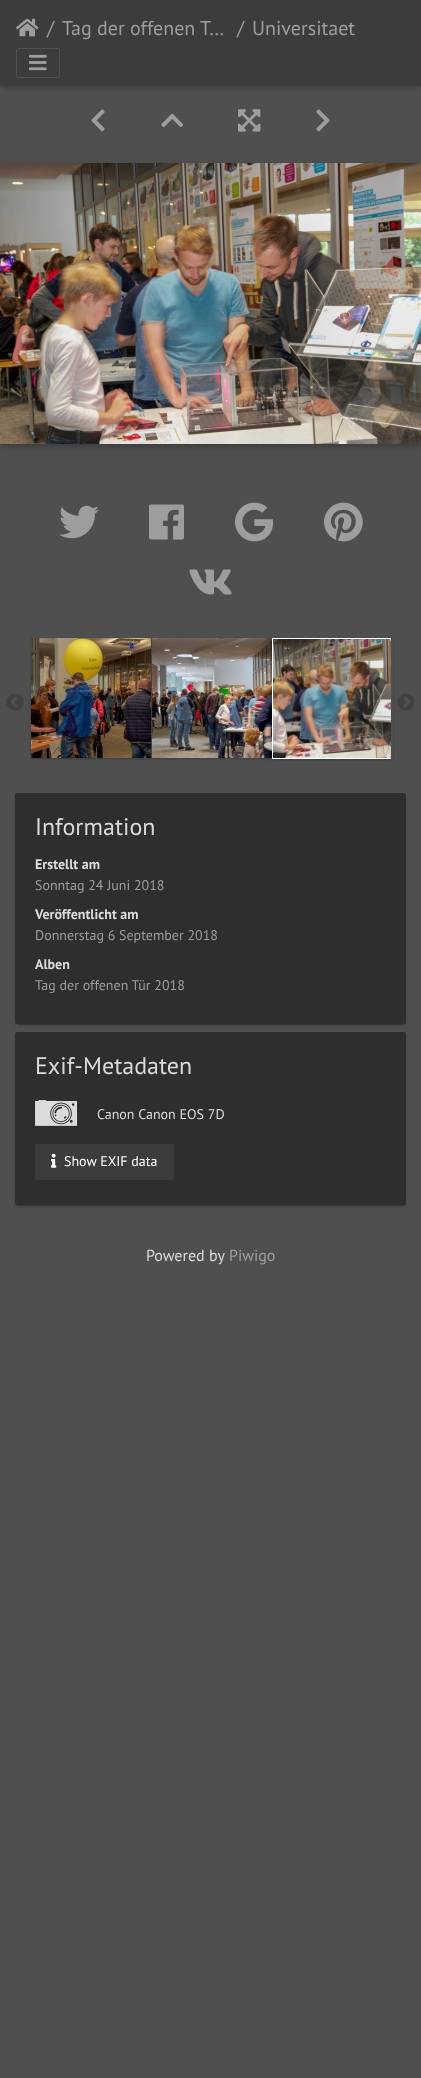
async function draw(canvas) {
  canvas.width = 421
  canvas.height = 2078
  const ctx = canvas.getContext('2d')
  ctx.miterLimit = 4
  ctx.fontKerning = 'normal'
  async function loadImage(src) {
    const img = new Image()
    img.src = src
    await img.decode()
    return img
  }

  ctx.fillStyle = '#4f4f4f'
  ctx.fillRect(0, 0, 421, 2078)
  ctx.fillStyle = '#00000033'
  ctx.filter = 'blur(2.5px)'
  ctx.beginPath()
  ctx.rect(1, 4, 419, 84)
  ctx.fill()
  ctx.filter = 'none'
  ctx.fillStyle = '#3c3c3c'
  ctx.fillRect(0, 0, 421, 86)
  ctx.drawImage(await loadImage('image0.png'), 16, 18, 23, 19)
  ctx.font = '20px PT Sans'
  ctx.fillStyle = '#9e9e9e'
  ctx.fillText('/', 47, 35)
  ctx.fillText('Tag der offenen T…', 62, 35)
  ctx.fillText('/', 237, 35)
  ctx.fillText('Universitaet', 252, 35)
  ctx.beginPath()
  ctx.roundRect(16.5, 48.5, 43, 29, 1.5)
  ctx.strokeStyle = '#505050'
  ctx.stroke()
  ctx.drawImage(await loadImage('image1.png'), 29, 54, 18, 17)
  ctx.drawImage(await loadImage('image2.png'), 91, 109, 14, 23)
  ctx.drawImage(await loadImage('image3.png'), 161, 113, 22, 14)
  ctx.drawImage(await loadImage('image4.png'), 238, 109, 23, 23)
  ctx.drawImage(await loadImage('image5.png'), 316, 109, 14, 23)
  ctx.fillStyle = '#0000003b'
  ctx.filter = 'blur(3px)'
  ctx.beginPath()
  ctx.rect(0, 166, 421, 281)
  ctx.fill()
  ctx.filter = 'none'
  ctx.drawImage(await loadImage('image6.png'), 0, 163, 421, 281)
  ctx.drawImage(await loadImage('image7.png'), 59, 505, 40, 34)
  ctx.drawImage(await loadImage('image8.png'), 149, 504, 35, 36)
  ctx.drawImage(await loadImage('image9.png'), 235, 502, 39, 40)
  ctx.drawImage(await loadImage('image10.png'), 324, 502, 39, 40)
  ctx.drawImage(await loadImage('image11.png'), 189, 569, 43, 26)
  ctx.drawImage(await loadImage('image12.png'), 6, 693, 18, 18)
  ctx.fillStyle = '#0000003d'
  ctx.filter = 'blur(1px)'
  ctx.beginPath()
  ctx.rect(31, 639, 120, 120)
  ctx.fill()
  ctx.filter = 'none'
  ctx.drawImage(await loadImage('image13.png'), 31, 638, 120, 120)
  ctx.filter = 'blur(1px)'
  ctx.beginPath()
  ctx.rect(152, 639, 120, 120)
  ctx.fill()
  ctx.filter = 'none'
  ctx.drawImage(await loadImage('image14.png'), 152, 638, 120, 120)
  ctx.save()
  ctx.beginPath()
  ctx.moveTo(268, 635)
  ctx.lineTo(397, 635)
  ctx.lineTo(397, 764)
  ctx.lineTo(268, 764)
  ctx.closePath()
  ctx.moveTo(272, 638)
  ctx.lineTo(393, 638)
  ctx.lineTo(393, 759)
  ctx.lineTo(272, 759)
  ctx.closePath()
  ctx.clip('evenodd')
  ctx.filter = 'blur(1px)'
  ctx.beginPath()
  ctx.rect(272, 639, 121, 121)
  ctx.fill()
  ctx.filter = 'none'
  ctx.restore()
  ctx.save()
  ctx.beginPath()
  ctx.rect(30, 628, 361, 141)
  ctx.clip()
  ctx.strokeStyle = '#fff'
  ctx.strokeRect(272.5, 638.5, 120, 120)
  ctx.restore()
  ctx.drawImage(await loadImage('image15.png'), 273, 639, 118, 119)
  ctx.drawImage(await loadImage('image16.png'), 397, 693, 18, 18)
  ctx.fillStyle = '#00000033'
  ctx.filter = 'blur(0.5px)'
  ctx.beginPath()
  ctx.rect(17, 798, 387, 227)
  ctx.fill()
  ctx.filter = 'none'
  ctx.fillStyle = '#00000024'
  ctx.filter = 'blur(1px)'
  ctx.beginPath()
  ctx.roundRect(15, 795, 391, 231, 2)
  ctx.fill()
  ctx.filter = 'none'
  ctx.fillStyle = '#2e2e2e'
  ctx.beginPath()
  ctx.roundRect(15, 793, 391, 231, 2)
  ctx.fill()
  ctx.font = '24px PT Sans'
  ctx.fillStyle = '#dbdbdb'
  ctx.fillText('Information', 35, 835)
  ctx.font = 'bold 14px PT Sans'
  ctx.fillText('Erstellt am', 35, 869)
  ctx.font = '14px PT Sans'
  ctx.fillStyle = '#9e9e9e'
  ctx.fillText('Sonntag 24 Juni 2018', 35, 890)
  ctx.font = 'bold 14px PT Sans'
  ctx.fillStyle = '#dbdbdb'
  ctx.fillText('Veröffentlicht am', 35, 919)
  ctx.font = '14px PT Sans'
  ctx.fillStyle = '#9e9e9e'
  ctx.fillText('Donnerstag 6 September 2018', 35, 940)
  ctx.font = 'bold 14px PT Sans'
  ctx.fillStyle = '#dbdbdb'
  ctx.fillText('Alben', 35, 969)
  ctx.font = '14px PT Sans'
  ctx.fillStyle = '#9e9e9e'
  ctx.fillText('Tag der offenen Tür 2018', 35, 990)
  ctx.fillStyle = '#00000033'
  ctx.filter = 'blur(0.5px)'
  ctx.beginPath()
  ctx.rect(17, 1037, 387, 169)
  ctx.fill()
  ctx.filter = 'none'
  ctx.fillStyle = '#00000024'
  ctx.filter = 'blur(1px)'
  ctx.beginPath()
  ctx.roundRect(15, 1034, 391, 173, 2)
  ctx.fill()
  ctx.filter = 'none'
  ctx.fillStyle = '#2e2e2e'
  ctx.beginPath()
  ctx.roundRect(15, 1032, 391, 173, 2)
  ctx.fill()
  ctx.font = '24px PT Sans'
  ctx.fillStyle = '#dbdbdb'
  ctx.fillText('Exif-Metadaten', 35, 1074)
  ctx.drawImage(await loadImage('image17.png'), 35, 1100, 43, 26)
  ctx.font = '14px PT Sans'
  ctx.fillText('Canon Canon EOS 7D', 97, 1119)
  ctx.fillStyle = '#3c3c3c'
  ctx.beginPath()
  ctx.roundRect(35, 1144, 139, 36, 2)
  ctx.fill()
  ctx.drawImage(await loadImage('image18.png'), 51, 1153, 6, 15)
  ctx.fillStyle = '#fff'
  ctx.fillText('Show EXIF data', 64, 1166)
  ctx.font = '16px PT Sans'
  ctx.fillStyle = '#dbdbdb'
  ctx.fillText('Powered by', 146, 1261)
  ctx.fillStyle = '#9e9e9e'
  ctx.fillText('Piwigo', 229, 1261)
}

draw(document.querySelector('canvas'))
